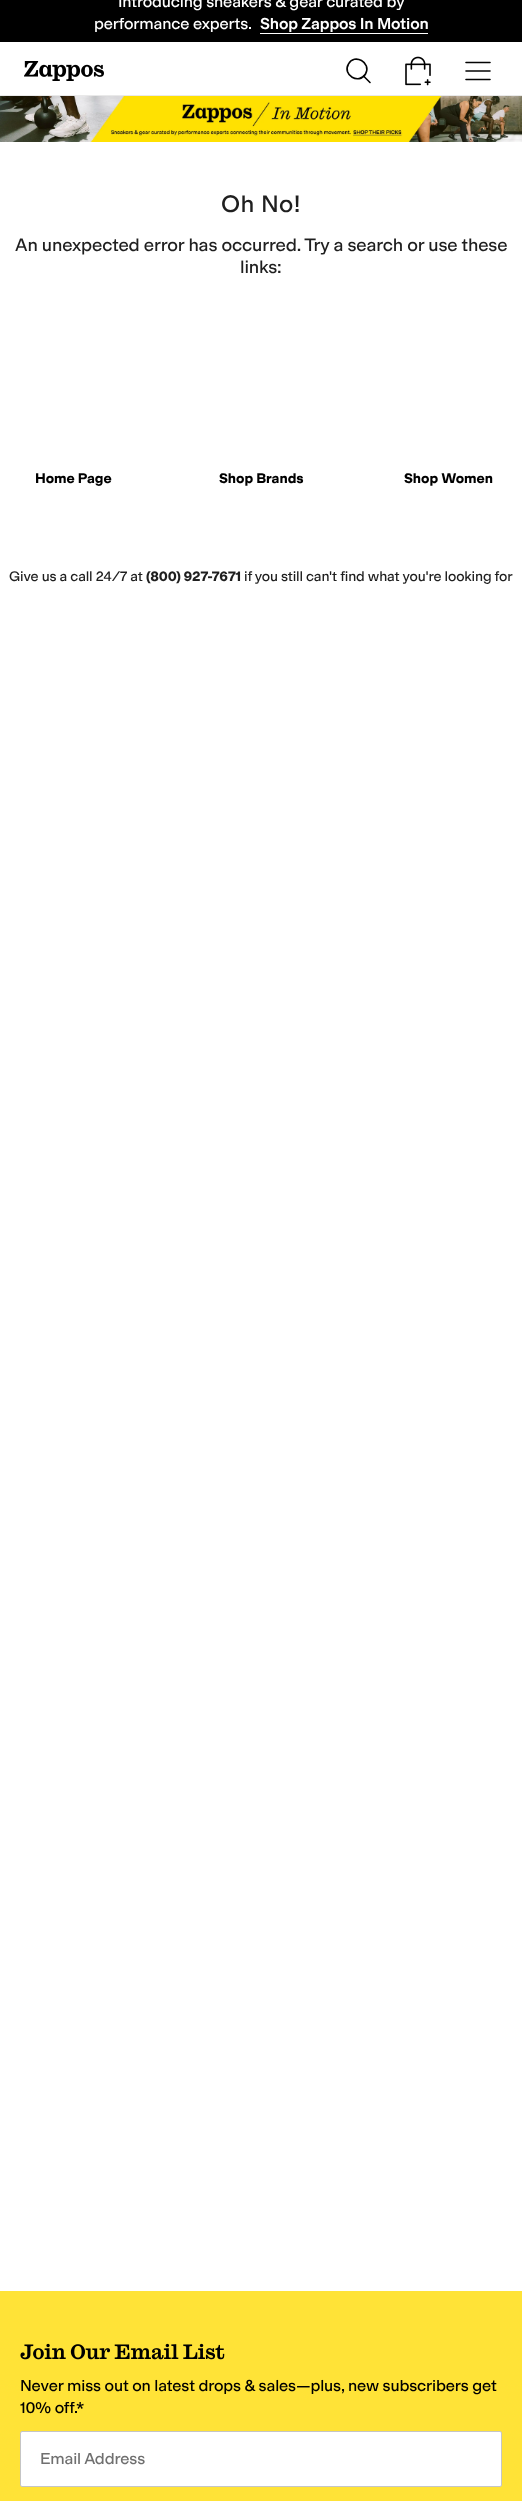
async function draw(canvas) {
  canvas.width = 522
  canvas.height = 2501
  const ctx = canvas.getContext('2d')
  ctx.miterLimit = 4
  ctx.fontKerning = 'normal'
  async function loadImage(src) {
    const img = new Image()
    img.src = src
    await img.decode()
    return img
  }

  ctx.fillStyle = '#fff'
  ctx.fillRect(0, 0, 522, 2501)
  ctx.fillStyle = '#000'
  ctx.fillRect(0, 0, 522, 42)
  ctx.letterSpacing = '-0.15px'
  ctx.font = '16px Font'
  ctx.fillStyle = '#fff'
  ctx.fillText('Introducing sneakers & gear curated by', 118, 7)
  ctx.fillText('performance experts.', 94, 29)
  ctx.font = '500 16px Font'
  ctx.fillText('Shop Zappos In Motion', 260, 29)
  ctx.fillRect(260, 33, 168, 1)
  ctx.fillStyle = '#e9e9e9'
  ctx.fillRect(0, 95, 522, 1)
  ctx.drawImage(await loadImage('image0.png'), 24, 61, 80, 20)
  ctx.beginPath()
  ctx.moveTo(348.5, 64)
  ctx.bezierCurveTo(342, 75, 359, 85, 365.5, 74)
  ctx.bezierCurveTo(372, 62.5, 354, 53, 348.5, 64)
  ctx.strokeStyle = '#030303'
  ctx.lineWidth = 1.6
  ctx.lineCap = 'round'
  ctx.lineJoin = 'round'
  ctx.stroke()
  ctx.beginPath()
  ctx.moveTo(363.5, 76)
  ctx.lineTo(370, 82.5)
  ctx.lineJoin = 'miter'
  ctx.stroke()
  ctx.drawImage(await loadImage('image1.png'), 405, 56, 26, 30)
  ctx.beginPath()
  ctx.moveTo(466, 79.5)
  ctx.lineTo(490, 79.5)
  ctx.moveTo(466, 71)
  ctx.lineTo(490, 71)
  ctx.moveTo(466, 62.5)
  ctx.lineTo(490, 62.5)
  ctx.stroke()
  ctx.drawImage(await loadImage('image2.png'), 0, 96, 522, 46)
  ctx.letterSpacing = '0.5px'
  ctx.font = '24px Font'
  ctx.fillStyle = '#1f1f1f'
  ctx.fillText('Oh No!', 221, 212)
  ctx.letterSpacing = '-0.15px'
  ctx.font = '18px Font'
  ctx.fillText('An unexpected error has occurred. Try a search or use these', 15, 251)
  ctx.fillText('links:', 240, 273)
  ctx.letterSpacing = '0px'
  ctx.font = 'bold 14px Font'
  ctx.fillStyle = '#000'
  ctx.fillText('Home Page', 35, 483)
  ctx.fillText('Shop Brands', 219, 483)
  ctx.fillText('Shop Women', 404, 483)
  ctx.letterSpacing = '-0.15px'
  ctx.font = '14px Font'
  ctx.fillStyle = '#1f1f1f'
  ctx.fillText('Give us a call 24/7 at', 9, 581)
  ctx.font = 'bold 14px Font'
  ctx.fillText('(800) 927-7671', 146, 581)
  ctx.font = '14px Font'
  ctx.fillText('if you still can\'t find what you\'re looking for', 244, 581)
  ctx.fillStyle = '#ffe337'
  ctx.fillRect(0, 2291, 522, 210)
  ctx.drawImage(await loadImage('image3.png'), 20, 2343, 205, 17)
  ctx.font = '16px Font'
  ctx.fillStyle = '#000'
  ctx.fillText('Never miss out on latest drops & sales—plus, new subscribers get', 20, 2391)
  ctx.fillText('10% off.*', 20, 2413)
  ctx.fillStyle = '#fff'
  ctx.beginPath()
  ctx.roundRect(20.5, 2431.5, 481, 55, 1.5)
  ctx.fill()
  ctx.strokeStyle = '#c5c5c5'
  ctx.lineWidth = 1
  ctx.stroke()
  ctx.fillStyle = '#707070'
  ctx.fillText('Email Address', 40, 2464)
}

draw(document.querySelector('canvas'))
